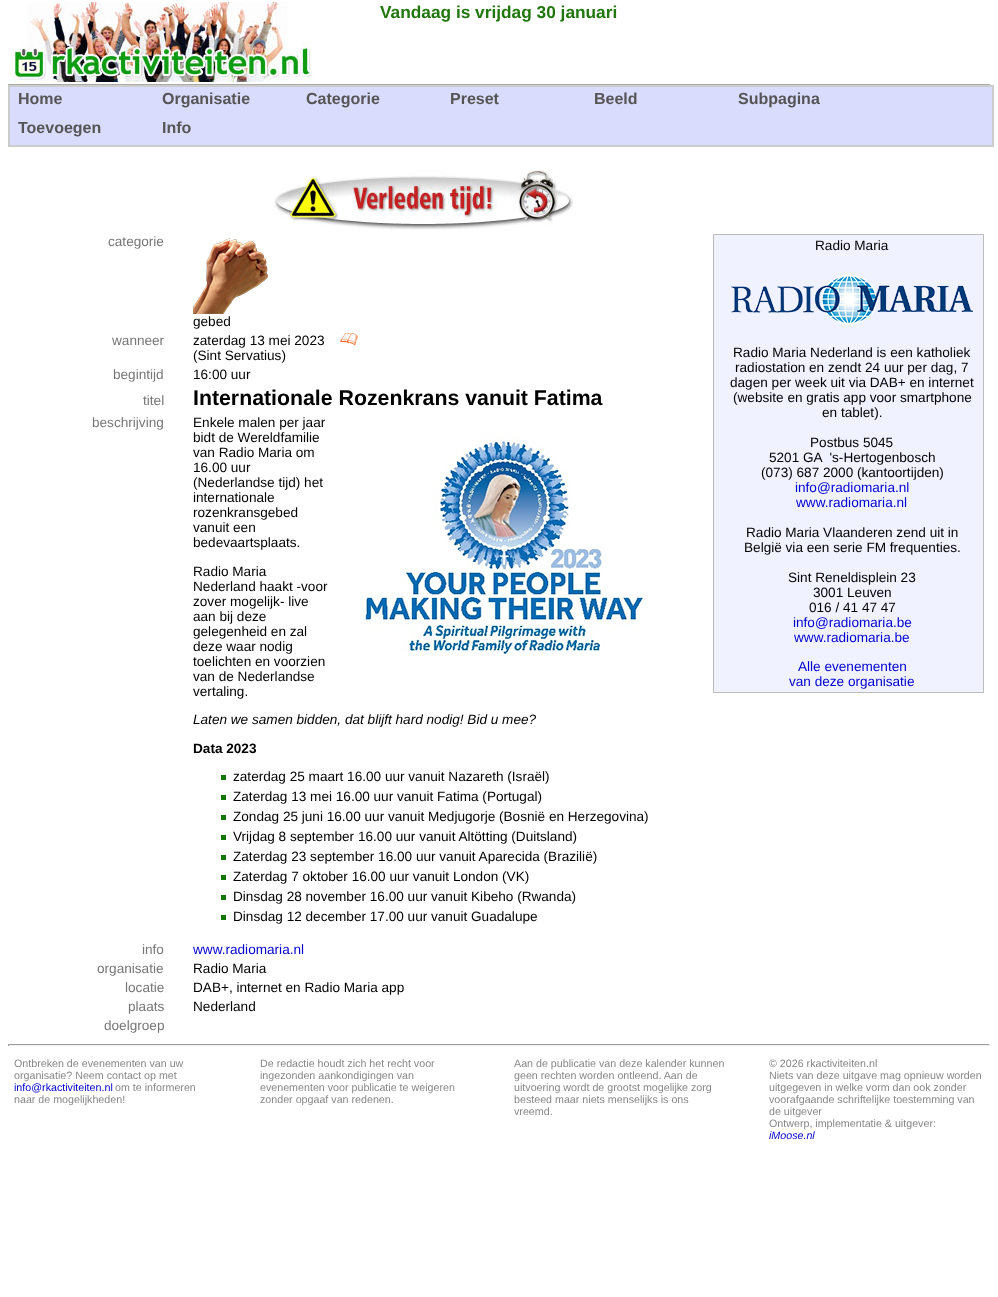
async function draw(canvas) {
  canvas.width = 998
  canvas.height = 1297
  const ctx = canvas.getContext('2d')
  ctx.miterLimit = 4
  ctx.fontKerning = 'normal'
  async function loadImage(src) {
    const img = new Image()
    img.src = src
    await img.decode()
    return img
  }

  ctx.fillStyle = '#fff'
  ctx.fillRect(0, 0, 998, 1297)
  ctx.fillStyle = '#aaa'
  ctx.fillRect(8, 84, 982, 1)
  ctx.drawImage(await loadImage('image0.png'), 13, 2, 300, 80)
  ctx.font = 'bold 17.3px Liberation Sans'
  ctx.fillStyle = '#21770d'
  ctx.fillText('Vandaag is vrijdag 30 januari', 380, 18)
  ctx.fillStyle = '#dadcfe'
  ctx.beginPath()
  ctx.rect(9, 86, 984, 60)
  ctx.fill()
  ctx.strokeStyle = '#ccc'
  ctx.lineWidth = 2
  ctx.stroke()
  ctx.font = 'bold 16px Liberation Sans'
  ctx.fillStyle = '#555'
  ctx.fillText('Home', 18, 104)
  ctx.fillText('Organisatie', 162, 104)
  ctx.fillText('Categorie', 306, 104)
  ctx.fillText('Preset', 450, 104)
  ctx.fillText('Beeld', 594, 104)
  ctx.fillText('Subpagina', 738, 104)
  ctx.fillText('Toevoegen', 18, 133)
  ctx.fillText('Info', 162, 133)
  ctx.drawImage(await loadImage('image1.png'), 273, 170, 300, 60)
  ctx.font = '13.6px Liberation Sans'
  ctx.fillStyle = '#777'
  ctx.fillText('categorie', 108, 246)
  ctx.drawImage(await loadImage('image2.png'), 193, 238, 75, 76)
  ctx.fillStyle = '#000'
  ctx.fillText('gebed', 193, 326)
  ctx.fillStyle = '#f0f2ff'
  ctx.beginPath()
  ctx.rect(713.5, 234.5, 270, 458)
  ctx.fill()
  ctx.strokeStyle = '#bbb'
  ctx.lineWidth = 1
  ctx.stroke()
  ctx.fillStyle = '#000'
  ctx.fillText('Radio Maria', 815, 250)
  ctx.drawImage(await loadImage('image3.png'), 731, 274, 242, 51)
  ctx.fillText('Radio Maria Nederland is een katholiek', 733, 357)
  ctx.fillText('radiostation en zendt 24 uur per dag, 7', 735, 372)
  ctx.fillText('dagen per week uit via DAB+ en internet', 730, 387)
  ctx.fillText('(website en gratis app voor smartphone', 733, 402)
  ctx.fillText('en tablet).', 822, 417)
  ctx.fillText('Postbus 5045', 810, 447)
  ctx.fillText('5201 GA  \'s-Hertogenbosch', 769, 462)
  ctx.fillText('(073) 687 2000 (kantoortijden)', 761, 477)
  ctx.fillStyle = '#0000cf'
  ctx.fillText('info@radiomaria.nl', 795, 492)
  ctx.fillText('www.radiomaria.nl', 796, 507)
  ctx.fillStyle = '#000'
  ctx.fillText('Radio Maria Vlaanderen zend uit in', 746, 537)
  ctx.fillText('België via een serie FM frequenties.', 744, 552)
  ctx.fillText('Sint Reneldisplein 23', 788, 582)
  ctx.fillText('3001 Leuven', 813, 597)
  ctx.fillText('016 / 41 47 47', 809, 612)
  ctx.fillStyle = '#0000cf'
  ctx.fillText('info@radiomaria.be', 793, 627)
  ctx.fillText('www.radiomaria.be', 794, 642)
  ctx.fillText('Alle evenementen', 798, 671)
  ctx.fillText('van deze organisatie', 789, 686)
  ctx.fillStyle = '#777'
  ctx.fillText('wanneer', 112, 345)
  ctx.fillStyle = '#000'
  ctx.fillText('zaterdag 13 mei 2023', 193, 345)
  ctx.drawImage(await loadImage('image4.png'), 340, 333, 18, 12)
  ctx.fillText('(Sint Servatius)', 193, 360)
  ctx.fillStyle = '#777'
  ctx.fillText('begintijd', 113, 379)
  ctx.fillStyle = '#000'
  ctx.fillText('16:00 uur', 193, 379)
  ctx.fillStyle = '#777'
  ctx.fillText('titel', 143, 405)
  ctx.font = 'bold 21.3px Liberation Sans'
  ctx.fillStyle = '#000'
  ctx.fillText('Internationale Rozenkrans vanuit Fatima', 193, 405)
  ctx.font = '13.6px Liberation Sans'
  ctx.fillStyle = '#777'
  ctx.fillText('beschrijving', 92, 427)
  ctx.fillStyle = '#000'
  ctx.fillText('Enkele malen per jaar', 193, 427)
  ctx.fillText('bidt de Wereldfamilie', 193, 442)
  ctx.fillText('van Radio Maria om', 193, 457)
  ctx.fillText('16.00 uur', 193, 472)
  ctx.fillText('(Nederlandse tijd) het', 193, 487)
  ctx.fillText('internationale', 193, 502)
  ctx.fillText('rozenkransgebed', 193, 517)
  ctx.fillText('vanuit een', 193, 532)
  ctx.fillText('bedevaartsplaats.', 193, 547)
  ctx.drawImage(await loadImage('image5.png'), 364, 434, 288, 221)
  ctx.fillText('Radio Maria', 193, 576)
  ctx.fillText('Nederland haakt -voor', 193, 591)
  ctx.fillText('zover mogelijk- live', 193, 606)
  ctx.fillText('aan bij deze', 193, 621)
  ctx.fillText('gelegenheid en zal', 193, 636)
  ctx.fillText('deze waar nodig', 193, 651)
  ctx.fillText('toelichten en voorzien', 193, 666)
  ctx.fillText('van de Nederlandse', 193, 681)
  ctx.fillText('vertaling.', 193, 696)
  ctx.font = 'italic 13.6px Liberation Sans'
  ctx.fillText('Laten we samen bidden, dat blijft hard nodig! Bid u mee?', 193, 724)
  ctx.font = 'bold 13.6px Liberation Sans'
  ctx.fillText('Data 2023', 193, 753)
  ctx.fillStyle = '#127602'
  ctx.fillRect(221, 775, 5, 5)
  ctx.font = '13.6px Liberation Sans'
  ctx.fillStyle = '#000'
  ctx.fillText('zaterdag 25 maart 16.00 uur vanuit Nazareth (Israël)', 233, 781)
  ctx.fillStyle = '#127602'
  ctx.fillRect(221, 795, 5, 5)
  ctx.fillStyle = '#000'
  ctx.fillText('Zaterdag 13 mei 16.00 uur vanuit Fatima (Portugal)', 233, 801)
  ctx.fillStyle = '#127602'
  ctx.fillRect(221, 815, 5, 5)
  ctx.fillStyle = '#000'
  ctx.fillText('Zondag 25 juni 16.00 uur vanuit Medjugorje (Bosnië en Herzegovina)', 233, 821)
  ctx.fillStyle = '#127602'
  ctx.fillRect(221, 835, 5, 5)
  ctx.fillStyle = '#000'
  ctx.fillText('Vrijdag 8 september 16.00 uur vanuit Altötting (Duitsland)', 233, 841)
  ctx.fillStyle = '#127602'
  ctx.fillRect(221, 855, 5, 5)
  ctx.fillStyle = '#000'
  ctx.fillText('Zaterdag 23 september 16.00 uur vanuit Aparecida (Brazilië)', 233, 861)
  ctx.fillStyle = '#127602'
  ctx.fillRect(221, 875, 5, 5)
  ctx.fillStyle = '#000'
  ctx.fillText('Zaterdag 7 oktober 16.00 uur vanuit London (VK)', 233, 881)
  ctx.fillStyle = '#127602'
  ctx.fillRect(221, 895, 5, 5)
  ctx.fillStyle = '#000'
  ctx.fillText('Dinsdag 28 november 16.00 uur vanuit Kibeho (Rwanda)', 233, 901)
  ctx.fillStyle = '#127602'
  ctx.fillRect(221, 915, 5, 5)
  ctx.fillStyle = '#000'
  ctx.fillText('Dinsdag 12 december 17.00 uur vanuit Guadalupe', 233, 921)
  ctx.fillStyle = '#777'
  ctx.fillText('info', 142, 954)
  ctx.fillStyle = '#0000cf'
  ctx.fillText('www.radiomaria.nl', 193, 954)
  ctx.fillStyle = '#777'
  ctx.fillText('organisatie', 97, 973)
  ctx.fillStyle = '#000'
  ctx.fillText('Radio Maria', 193, 973)
  ctx.fillStyle = '#777'
  ctx.fillText('locatie', 125, 992)
  ctx.fillStyle = '#000'
  ctx.fillText('DAB+, internet en Radio Maria app', 193, 992)
  ctx.fillStyle = '#777'
  ctx.fillText('plaats', 128, 1011)
  ctx.fillStyle = '#000'
  ctx.fillText('Nederland', 193, 1011)
  ctx.fillStyle = '#777'
  ctx.fillText('doelgroep', 104, 1030)
  ctx.fillStyle = '#9f9f9f'
  ctx.fillRect(8, 1044, 982, 1)
  ctx.fillStyle = '#eee'
  ctx.fillRect(989, 1044, 1, 2)
  ctx.fillRect(8, 1045, 982, 1)
  ctx.fillStyle = '#9f9f9f'
  ctx.fillRect(8, 1044, 1, 2)
  ctx.font = '10.7px Liberation Sans'
  ctx.fillStyle = '#888'
  ctx.fillText('Ontbreken de evenementen van uw', 14, 1067)
  ctx.fillText('organisatie? Neem contact op met', 14, 1079)
  ctx.fillStyle = '#0000cf'
  ctx.fillText('info@rkactiviteiten.nl', 14, 1091)
  ctx.fillStyle = '#888'
  ctx.fillText('om te informeren', 115, 1091)
  ctx.fillText('naar de mogelijkheden!', 14, 1103)
  ctx.fillText('De redactie houdt zich het recht voor', 260, 1067)
  ctx.fillText('ingezonden aankondigingen van', 260, 1079)
  ctx.fillText('evenementen voor publicatie te weigeren', 260, 1091)
  ctx.fillText('zonder opgaaf van redenen.', 260, 1103)
  ctx.fillText('Aan de publicatie van deze kalender kunnen', 514, 1067)
  ctx.fillText('geen rechten worden ontleend. Aan de', 514, 1079)
  ctx.fillText('uitvoering wordt de grootst mogelijke zorg', 514, 1091)
  ctx.fillText('besteed maar niets menselijks is ons', 514, 1103)
  ctx.fillText('vreemd.', 514, 1115)
  ctx.fillText('© 2026 rkactiviteiten.nl', 769, 1067)
  ctx.fillText('Niets van deze uitgave mag opnieuw worden', 769, 1079)
  ctx.fillText('uitgegeven in welke vorm dan ook zonder', 769, 1091)
  ctx.fillText('voorafgaande schriftelijke toestemming van', 769, 1103)
  ctx.fillText('de uitgever', 769, 1115)
  ctx.fillText('Ontwerp, implementatie & uitgever:', 769, 1127)
  ctx.font = 'italic 10.7px Liberation Sans'
  ctx.fillStyle = '#0000cf'
  ctx.fillText('iMoose.nl', 769, 1139)
}

draw(document.querySelector('canvas'))
